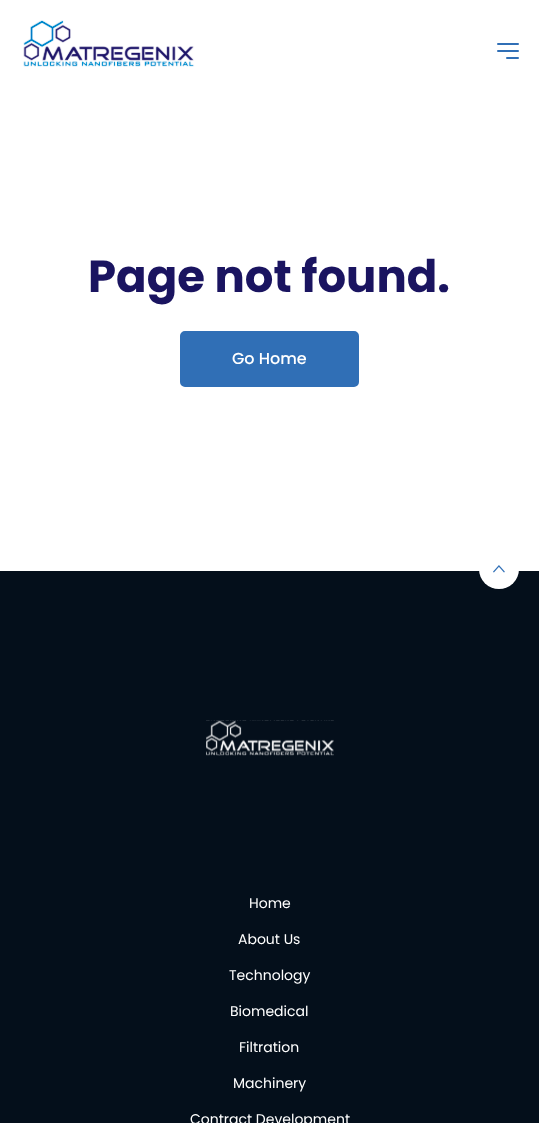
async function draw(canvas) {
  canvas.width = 539
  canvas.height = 1123
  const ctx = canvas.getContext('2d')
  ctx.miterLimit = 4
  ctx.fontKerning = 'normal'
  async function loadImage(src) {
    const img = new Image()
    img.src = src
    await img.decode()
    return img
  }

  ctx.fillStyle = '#fff'
  ctx.fillRect(0, 0, 539, 1123)
  ctx.drawImage(await loadImage('image0.png'), 23, 20, 172, 47)
  ctx.fillStyle = '#306fb6'
  ctx.beginPath()
  ctx.roundRect(497, 50, 22, 2, 1)
  ctx.fill()
  ctx.beginPath()
  ctx.roundRect(497, 43, 22, 2, 1)
  ctx.fill()
  ctx.beginPath()
  ctx.roundRect(506, 57, 13, 2, 1)
  ctx.fill()
  ctx.font = 'bold 45px Poppins'
  ctx.fillStyle = '#1a1460'
  ctx.fillText('Page not found.', 88, 292)
  ctx.fillStyle = '#306fb6'
  ctx.beginPath()
  ctx.roundRect(181, 332, 177, 54, 4)
  ctx.fill()
  ctx.strokeStyle = '#306fb6'
  ctx.lineWidth = 2
  ctx.stroke()
  ctx.font = '500 16px Poppins'
  ctx.fillStyle = '#fff'
  ctx.fillText('Go Home', 232, 364)
  ctx.fillStyle = '#040f1b'
  ctx.fillRect(0, 571, 539, 552)
  ctx.fillStyle = '#fff'
  ctx.beginPath()
  ctx.arc(499, 569, 20, 0, 2 * Math.PI)
  ctx.fill()
  ctx.drawImage(await loadImage('image1.png'), 493, 565, 12, 8)
  ctx.drawImage(await loadImage('image2.png'), 206, 720, 128, 36)
  ctx.font = '14px Poppins'
  ctx.fillText('Home', 249, 908)
  ctx.fillText('About Us', 238, 944)
  ctx.fillText('Technology', 229, 980)
  ctx.fillText('Biomedical', 230, 1016)
  ctx.fillText('Filtration', 239, 1052)
  ctx.fillText('Machinery', 233, 1088)
  ctx.fillText('Contract Development', 190, 1124)
}

draw(document.querySelector('canvas'))
